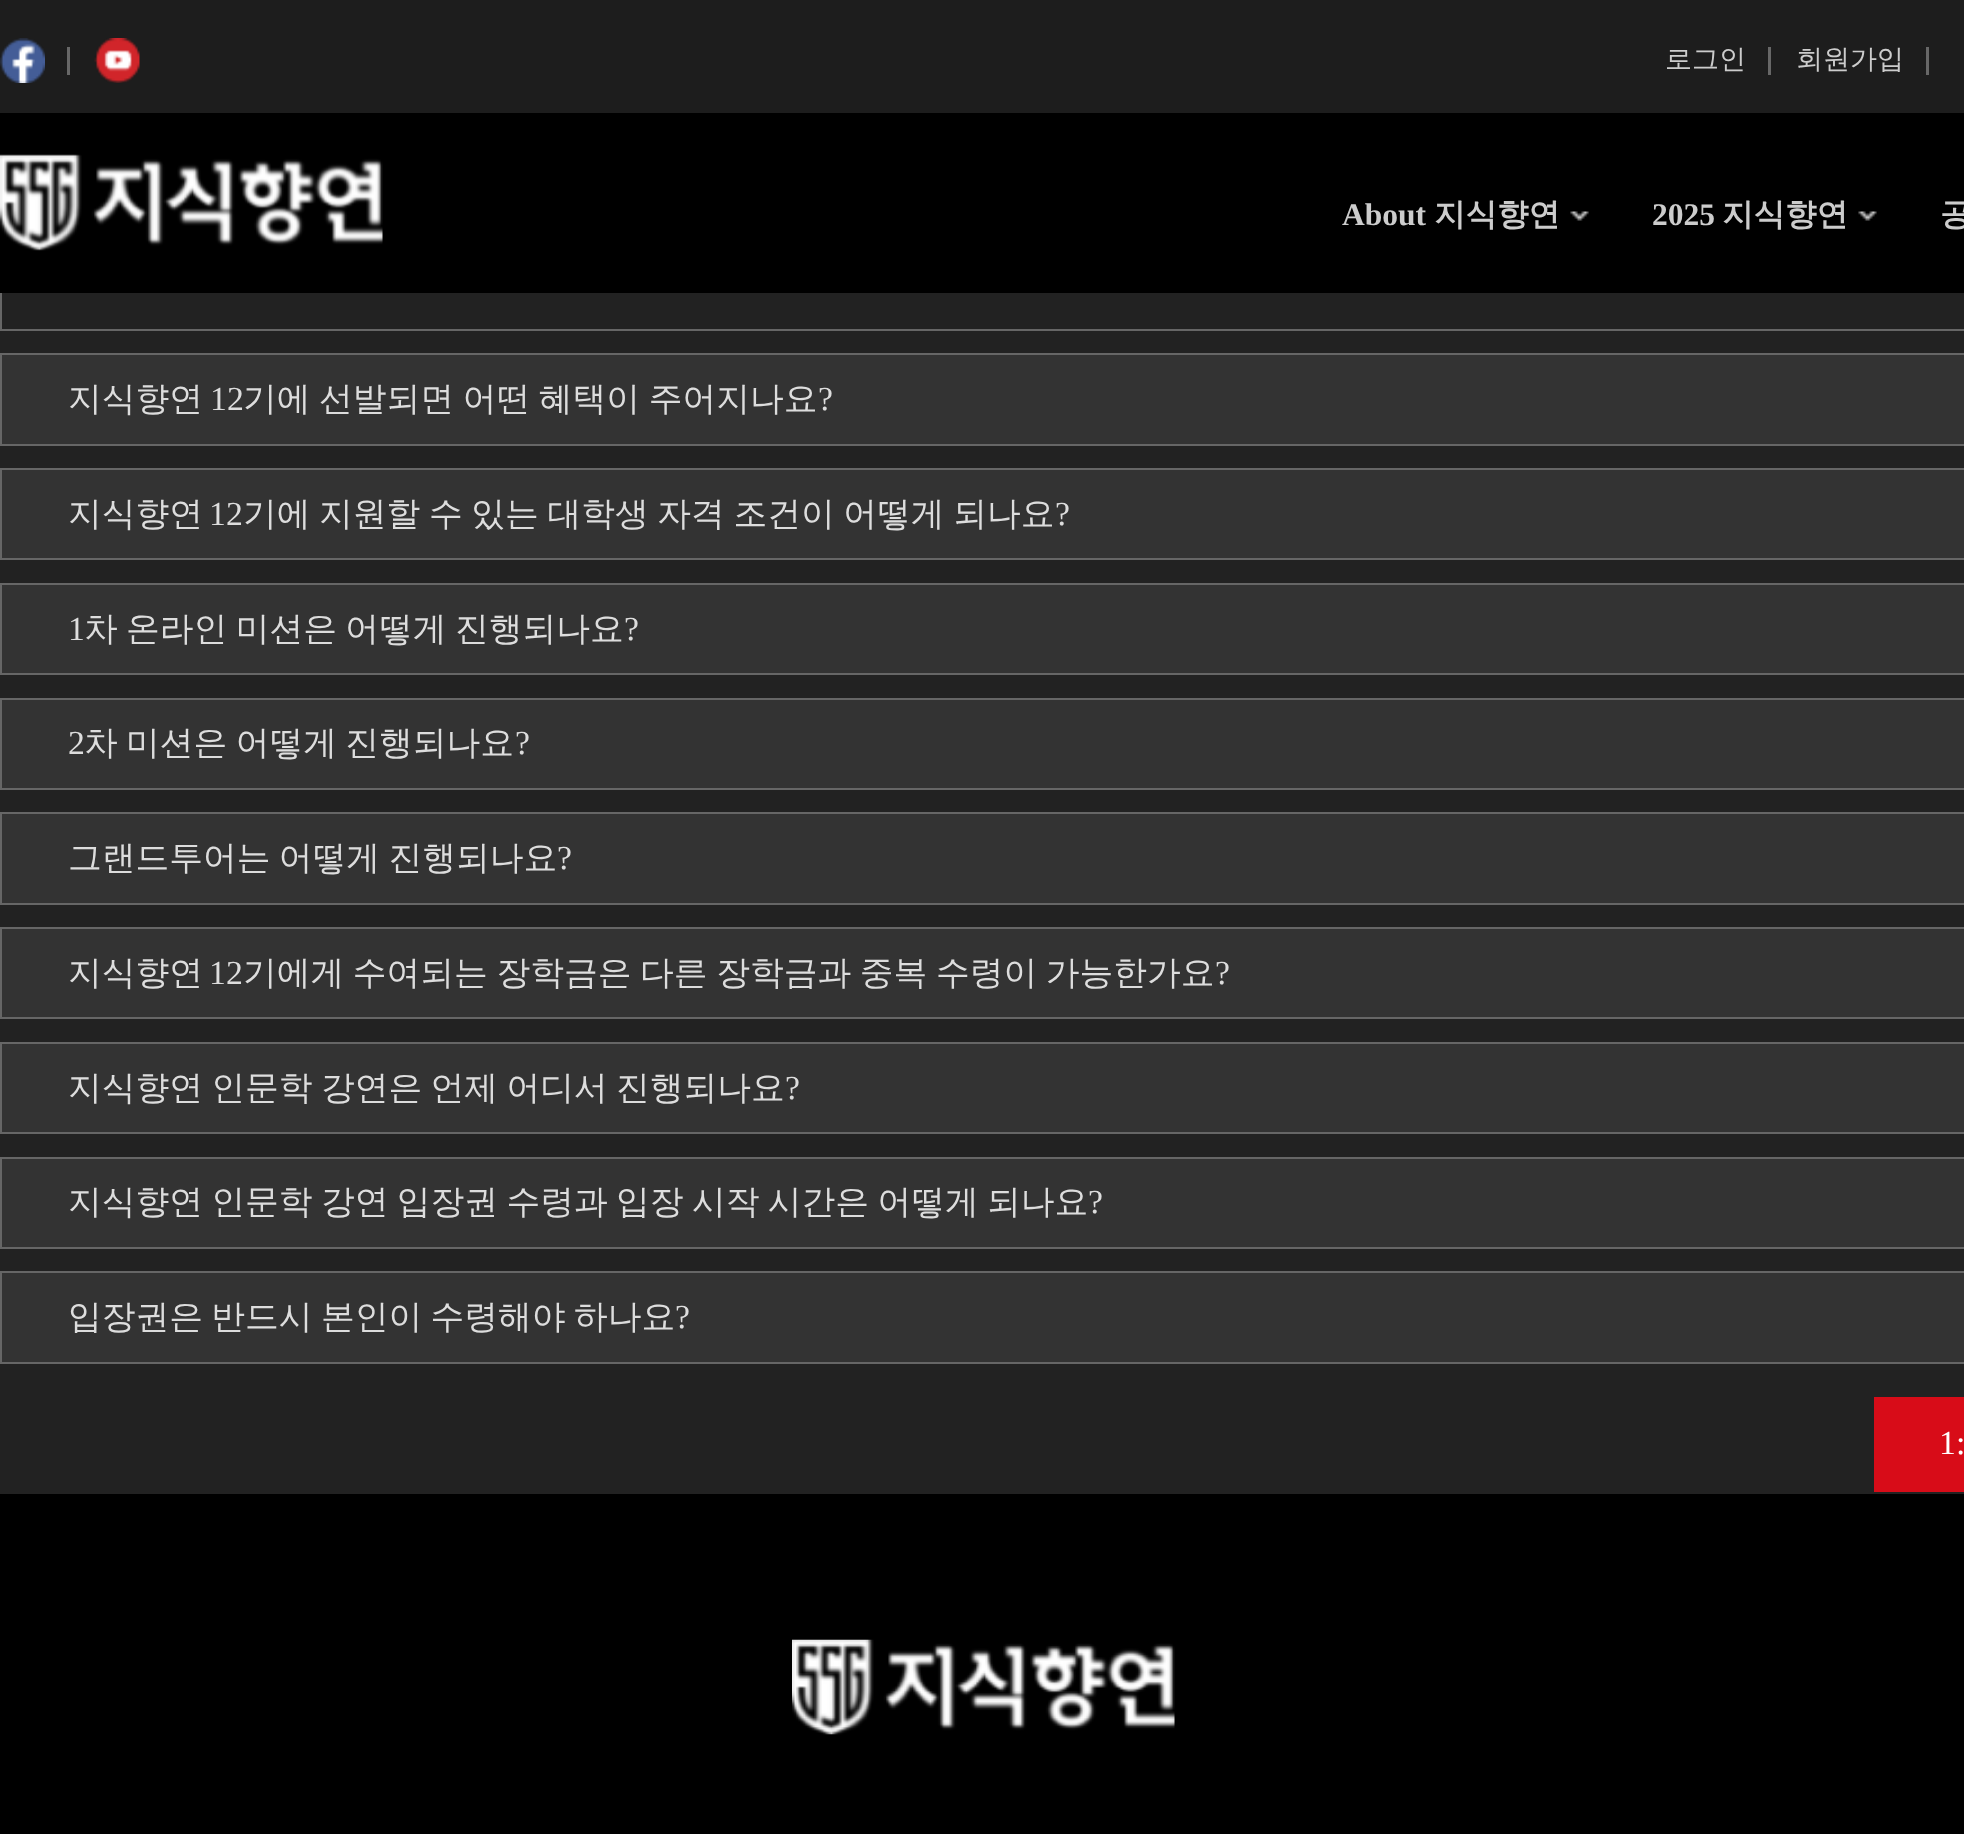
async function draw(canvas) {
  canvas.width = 1964
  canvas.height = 1834
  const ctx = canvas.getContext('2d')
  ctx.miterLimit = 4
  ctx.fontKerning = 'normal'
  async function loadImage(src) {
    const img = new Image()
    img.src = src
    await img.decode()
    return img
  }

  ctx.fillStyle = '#222'
  ctx.fillRect(0, 0, 1964, 1834)
  ctx.fillStyle = '#1d1d1d'
  ctx.fillRect(0, 0, 1964, 113)
  ctx.drawImage(await loadImage('image0.png'), 0, 38, 45, 45)
  ctx.fillStyle = '#676767'
  ctx.fillRect(67, 47, 3, 28)
  ctx.drawImage(await loadImage('image1.png'), 94, 38, 46, 45)
  ctx.font = '500 27px WenQuanYi Zen Hei'
  ctx.fillStyle = '#ccc'
  ctx.fillText('로그인', 1665, 68)
  ctx.fillStyle = '#676767'
  ctx.fillRect(1768, 47, 3, 28)
  ctx.fillStyle = '#ccc'
  ctx.fillText('회원가입', 1796, 68)
  ctx.fillStyle = '#676767'
  ctx.fillRect(1926, 47, 3, 28)
  ctx.fillStyle = '#000'
  ctx.fillRect(0, 113, 1964, 180)
  ctx.drawImage(await loadImage('image2.png'), 0, 154, 383, 97)
  ctx.drawImage(await loadImage('image3.png'), 1570, 211, 19, 10)
  ctx.font = 'bold 31.5px Liberation Serif'
  ctx.fillStyle = '#ccc'
  ctx.fillText('About', 1342, 225)
  ctx.font = 'bold 31.5px WenQuanYi Zen Hei'
  ctx.fillText('지식향연', 1434, 225)
  ctx.drawImage(await loadImage('image3.png'), 1858, 211, 19, 10)
  ctx.font = 'bold 31.5px Liberation Serif'
  ctx.fillText('2025', 1652, 225)
  ctx.font = 'bold 31.5px WenQuanYi Zen Hei'
  ctx.fillText('지식향연', 1722, 225)
  ctx.fillText('공', 1940, 225)
  ctx.fillStyle = '#666'
  ctx.fillRect(0, 329, 1964, 2)
  ctx.fillRect(0, 293, 2, 38)
  ctx.fillStyle = '#333'
  ctx.beginPath()
  ctx.rect(1, 354, 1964, 91)
  ctx.fill()
  ctx.strokeStyle = '#666'
  ctx.lineWidth = 2
  ctx.stroke()
  ctx.font = '500 33.75px WenQuanYi Zen Hei'
  ctx.fillStyle = '#ddd'
  ctx.fillText('지식향연', 68, 410)
  ctx.font = '33.75px Liberation Serif'
  ctx.fillText('12', 210, 410)
  ctx.wordSpacing = '-1.5px'
  ctx.font = '500 33.75px WenQuanYi Zen Hei'
  ctx.fillText('기에 선발되면 어떤 혜택이 주어지나요', 243, 410)
  ctx.wordSpacing = '0px'
  ctx.font = '33.75px Liberation Serif'
  ctx.fillText('?', 818, 410)
  ctx.fillStyle = '#333'
  ctx.beginPath()
  ctx.rect(1, 469, 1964, 90)
  ctx.fill()
  ctx.stroke()
  ctx.font = '500 33.75px WenQuanYi Zen Hei'
  ctx.fillStyle = '#ddd'
  ctx.fillText('지식향연', 68, 525)
  ctx.font = '33.75px Liberation Serif'
  ctx.fillText('12', 209, 525)
  ctx.wordSpacing = '-1.5px'
  ctx.font = '500 33.75px WenQuanYi Zen Hei'
  ctx.fillText('기에 지원할 수 있는 대학생 자격 조건이 어떻게 되나요', 243, 525)
  ctx.wordSpacing = '0px'
  ctx.font = '33.75px Liberation Serif'
  ctx.fillText('?', 1055, 525)
  ctx.fillStyle = '#333'
  ctx.beginPath()
  ctx.rect(1, 584, 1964, 90)
  ctx.fill()
  ctx.stroke()
  ctx.fillStyle = '#ddd'
  ctx.fillText('1', 68, 640)
  ctx.wordSpacing = '-1.75px'
  ctx.font = '500 33.75px WenQuanYi Zen Hei'
  ctx.fillText('차 온라인 미션은 어떻게 진행되나요', 84, 640)
  ctx.wordSpacing = '0px'
  ctx.font = '33.75px Liberation Serif'
  ctx.fillText('?', 624, 640)
  ctx.fillStyle = '#333'
  ctx.beginPath()
  ctx.rect(1, 699, 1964, 90)
  ctx.fill()
  ctx.stroke()
  ctx.fillStyle = '#ddd'
  ctx.fillText('2', 68, 754)
  ctx.wordSpacing = '-1.75px'
  ctx.font = '500 33.75px WenQuanYi Zen Hei'
  ctx.fillText('차 미션은 어떻게 진행되나요', 84, 754)
  ctx.wordSpacing = '0px'
  ctx.font = '33.75px Liberation Serif'
  ctx.fillText('?', 515, 754)
  ctx.fillStyle = '#333'
  ctx.beginPath()
  ctx.rect(1, 813, 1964, 91)
  ctx.fill()
  ctx.stroke()
  ctx.wordSpacing = '-1.75px'
  ctx.font = '500 33.75px WenQuanYi Zen Hei'
  ctx.fillStyle = '#ddd'
  ctx.fillText('그랜드투어는 어떻게 진행되나요', 68, 869)
  ctx.wordSpacing = '0px'
  ctx.font = '33.75px Liberation Serif'
  ctx.fillText('?', 557, 869)
  ctx.fillStyle = '#333'
  ctx.beginPath()
  ctx.rect(1, 928, 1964, 90)
  ctx.fill()
  ctx.stroke()
  ctx.font = '500 33.75px WenQuanYi Zen Hei'
  ctx.fillStyle = '#ddd'
  ctx.fillText('지식향연', 68, 984)
  ctx.font = '33.75px Liberation Serif'
  ctx.fillText('12', 209, 984)
  ctx.wordSpacing = '-1.5px'
  ctx.font = '500 33.75px WenQuanYi Zen Hei'
  ctx.fillText('기에게 수여되는 장학금은 다른 장학금과 중복 수령이 가능한가요', 243, 984)
  ctx.wordSpacing = '0px'
  ctx.font = '33.75px Liberation Serif'
  ctx.fillText('?', 1215, 984)
  ctx.fillStyle = '#333'
  ctx.beginPath()
  ctx.rect(1, 1043, 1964, 90)
  ctx.fill()
  ctx.stroke()
  ctx.wordSpacing = '-1.75px'
  ctx.font = '500 33.75px WenQuanYi Zen Hei'
  ctx.fillStyle = '#ddd'
  ctx.fillText('지식향연 인문학 강연은 언제 어디서 진행되나요', 68, 1099)
  ctx.wordSpacing = '0px'
  ctx.font = '33.75px Liberation Serif'
  ctx.fillText('?', 785, 1099)
  ctx.fillStyle = '#333'
  ctx.beginPath()
  ctx.rect(1, 1158, 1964, 90)
  ctx.fill()
  ctx.stroke()
  ctx.wordSpacing = '-1.75px'
  ctx.font = '500 33.75px WenQuanYi Zen Hei'
  ctx.fillStyle = '#ddd'
  ctx.fillText('지식향연 인문학 강연 입장권 수령과 입장 시작 시간은 어떻게 되나요', 68, 1213)
  ctx.wordSpacing = '0px'
  ctx.font = '33.75px Liberation Serif'
  ctx.fillText('?', 1088, 1213)
  ctx.fillStyle = '#333'
  ctx.beginPath()
  ctx.rect(1, 1272, 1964, 91)
  ctx.fill()
  ctx.stroke()
  ctx.wordSpacing = '-1.75px'
  ctx.font = '500 33.75px WenQuanYi Zen Hei'
  ctx.fillStyle = '#ddd'
  ctx.fillText('입장권은 반드시 본인이 수령해야 하나요', 68, 1328)
  ctx.wordSpacing = '0px'
  ctx.font = '33.75px Liberation Serif'
  ctx.fillText('?', 675, 1328)
  ctx.fillStyle = '#d80c18'
  ctx.fillRect(1874, 1397, 90, 95)
  ctx.fillStyle = '#fff'
  ctx.fillText('1:', 1939, 1454)
  ctx.fillStyle = '#000'
  ctx.fillRect(0, 1494, 1964, 340)
  ctx.drawImage(await loadImage('image4.png'), 792, 1639, 383, 96)
}

draw(document.querySelector('canvas'))
